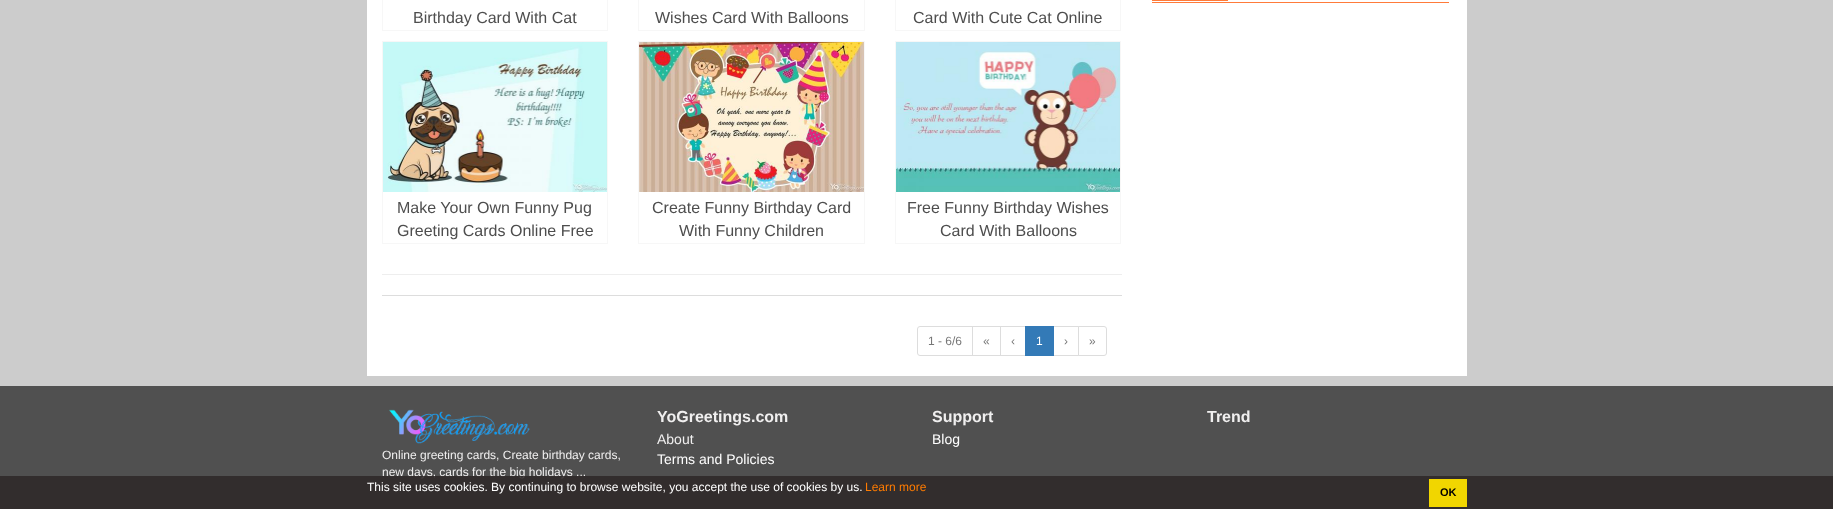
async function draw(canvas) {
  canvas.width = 1833
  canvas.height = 509
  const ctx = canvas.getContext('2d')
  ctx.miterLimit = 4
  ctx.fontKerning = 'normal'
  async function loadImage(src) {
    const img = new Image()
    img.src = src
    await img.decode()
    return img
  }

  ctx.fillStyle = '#ccc'
  ctx.fillRect(0, 0, 1833, 509)
  ctx.fillStyle = '#fff'
  ctx.fillRect(367, 0, 1100, 376)
  ctx.fillStyle = '#ff7b3a'
  ctx.fillRect(1152, 2, 297, 1)
  ctx.fillRect(1152, 0, 76, 1)
  ctx.strokeStyle = '#f7f7f7'
  ctx.strokeRect(382.5, -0.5, 225, 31)
  ctx.font = '16px Liberation Sans'
  ctx.fillStyle = '#4e4e4e'
  ctx.fillText('Birthday Card With Cat', 413, 23)
  ctx.strokeRect(638.5, -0.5, 226, 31)
  ctx.fillText('Wishes Card With Balloons', 655, 23)
  ctx.strokeRect(895.5, -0.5, 225, 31)
  ctx.fillText('Card With Cute Cat Online', 913, 23)
  ctx.strokeRect(382.5, 41.5, 225, 202)
  ctx.drawImage(await loadImage('image0.png'), 383, 42, 224, 150)
  ctx.fillText('Make Your Own Funny Pug', 397, 213)
  ctx.fillText('Greeting Cards Online Free', 397, 236)
  ctx.strokeRect(638.5, 41.5, 226, 202)
  ctx.drawImage(await loadImage('image1.png'), 639, 42, 225, 150)
  ctx.fillText('Create Funny Birthday Card', 652, 213)
  ctx.fillText('With Funny Children', 679, 236)
  ctx.strokeRect(895.5, 41.5, 225, 202)
  ctx.drawImage(await loadImage('image2.png'), 896, 42, 224, 150)
  ctx.fillText('Free Funny Birthday Wishes', 907, 213)
  ctx.fillText('Card With Balloons', 940, 236)
  ctx.fillStyle = '#eee'
  ctx.fillRect(382, 274, 740, 1)
  ctx.fillStyle = '#ddd'
  ctx.fillRect(382, 295, 740, 1)
  ctx.beginPath()
  ctx.roundRect(917.5, 326.5, 55, 29, [2.5, 0, 0, 2.5])
  ctx.strokeStyle = '#ddd'
  ctx.stroke()
  ctx.font = '12px Liberation Sans'
  ctx.fillStyle = '#777'
  ctx.fillText('1 - 6/6', 928, 345)
  ctx.strokeRect(972.5, 326.5, 28, 29)
  ctx.fillText('«', 983, 345)
  ctx.strokeRect(1000.5, 326.5, 25, 29)
  ctx.fillText('‹', 1011, 345)
  ctx.strokeRect(1053.5, 326.5, 25, 29)
  ctx.fillStyle = '#337ab7'
  ctx.fillRect(1025, 326, 29, 30)
  ctx.fillStyle = '#fff'
  ctx.fillText('1', 1036, 345)
  ctx.fillStyle = '#777'
  ctx.fillText('›', 1064, 345)
  ctx.fillStyle = '#fff'
  ctx.beginPath()
  ctx.roundRect(1078.5, 326.5, 28, 29, [0, 2.5, 2.5, 0])
  ctx.fill()
  ctx.stroke()
  ctx.fillStyle = '#777'
  ctx.fillText('»', 1089, 345)
  ctx.fillStyle = '#505050'
  ctx.fillRect(0, 386, 1833, 123)
  ctx.font = 'bold 16px Liberation Sans'
  ctx.fillStyle = '#f0efef'
  ctx.fillText('YoGreetings.com', 657, 422)
  ctx.font = '14px Liberation Sans'
  ctx.fillText('About', 657, 444)
  ctx.fillStyle = '#fff'
  ctx.fillText('Terms and Policies', 657, 464)
  ctx.font = 'bold 16px Liberation Sans'
  ctx.fillStyle = '#f0efef'
  ctx.fillText('Support', 932, 422)
  ctx.font = '14px Liberation Sans'
  ctx.fillStyle = '#fff'
  ctx.fillText('Blog', 932, 444)
  ctx.font = 'bold 16px Liberation Sans'
  ctx.fillStyle = '#f0efef'
  ctx.fillText('Trend', 1207, 422)
  ctx.drawImage(await loadImage('image3.png'), 389, 409, 141, 35)
  ctx.font = '12px Liberation Sans'
  ctx.fillText('Online greeting cards, Create birthday cards,', 382, 459)
  ctx.fillText('new days, cards for the big holidays ...', 382, 476)
  ctx.fillStyle = '#2e2828de'
  ctx.fillRect(0, 476, 1833, 33)
  ctx.fillStyle = '#fff'
  ctx.fillText('This site uses cookies. By continuing to browse website, you accept the use of cookies by us.', 367, 491)
  ctx.fillStyle = '#ff7b00'
  ctx.fillText('Learn more', 865, 491)
  ctx.fillStyle = '#f1d600'
  ctx.fillRect(1429, 479, 38, 28)
  ctx.font = 'bold 11px Liberation Sans'
  ctx.fillStyle = '#000'
  ctx.fillText('OK', 1440, 496)
}

draw(document.querySelector('canvas'))
